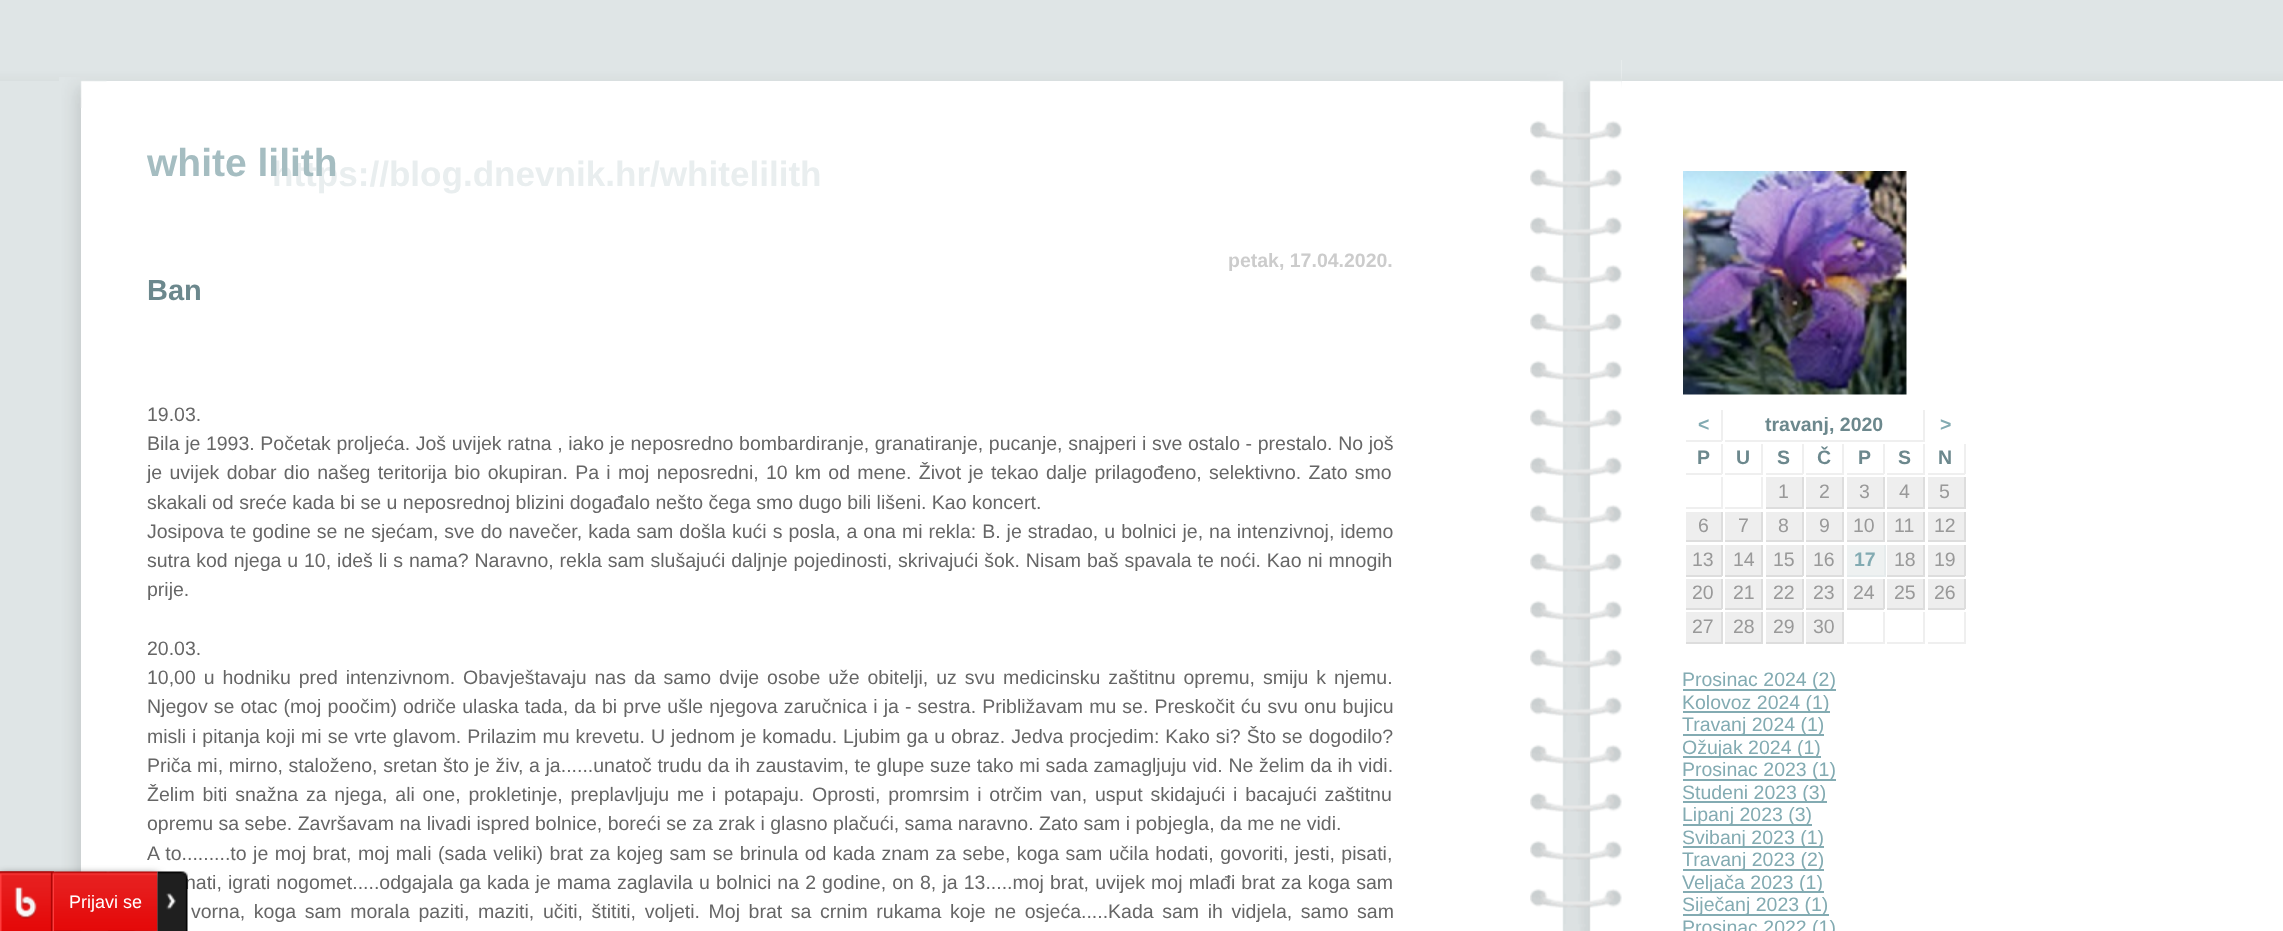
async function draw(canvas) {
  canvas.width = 2283
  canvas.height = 931
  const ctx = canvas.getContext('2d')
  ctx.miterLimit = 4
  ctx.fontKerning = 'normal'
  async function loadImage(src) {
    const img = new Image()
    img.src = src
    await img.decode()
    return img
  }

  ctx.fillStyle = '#fff'
  ctx.fillRect(0, 0, 2283, 931)
  ctx.drawImage(await loadImage('image0.png'), 0, 81, 81, 850)
  ctx.drawImage(await loadImage('image1.png'), 0, 0, 2283, 81)
  ctx.fillStyle = '#333'
  ctx.filter = 'blur(4px)'
  ctx.beginPath()
  ctx.rect(0, 875, 158, 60)
  ctx.fill()
  ctx.filter = 'none'
  ctx.drawImage(await loadImage('image2.png'), 0, 871, 158, 60)
  ctx.drawImage(await loadImage('image3.png'), 0, 871, 54, 60)
  ctx.font = '18px Liberation Sans'
  ctx.fillStyle = '#fff'
  ctx.fillText('Prijavi se', 69, 908)
  ctx.wordSpacing = '0.7px'
  ctx.font = '19.5px Liberation Sans'
  ctx.fillStyle = '#666'
  ctx.fillText('nati, igrati nogomet.....odgajala ga kada je mama zaglavila u bolnici na 2 godine, on 8, ja 13.....moj brat, uvijek moj mlađi brat za koga sam', 185, 889)
  ctx.drawImage(await loadImage('image4.png'), 157, 871, 31, 60)
  ctx.drawImage(await loadImage('image5.png'), 1530, 60, 92, 871)
  ctx.drawImage(await loadImage('image6.png'), 1530, 60, 92, 32)
  ctx.drawImage(await loadImage('image7.png'), 59, 77, 48, 31)
  ctx.wordSpacing = '0px'
  ctx.font = 'bold 35.1px Liberation Sans'
  ctx.fillStyle = '#e9eeef'
  ctx.fillText('https://blog.dnevnik.hr/whitelilith', 272, 186)
  ctx.font = 'bold 39px Liberation Sans'
  ctx.fillStyle = '#a5bdc1'
  ctx.fillText('white lilith', 147, 176)
  ctx.font = 'bold 19.5px Liberation Sans'
  ctx.fillStyle = '#ccc'
  ctx.fillText('petak, 17.04.2020.', 1228, 267)
  ctx.font = 'bold 29px Liberation Sans'
  ctx.fillStyle = '#6c888d'
  ctx.fillText('Ban', 147, 300)
  ctx.font = '19.5px Liberation Sans'
  ctx.fillStyle = '#666'
  ctx.fillText('19.03.', 147, 421)
  ctx.wordSpacing = '0.2px'
  ctx.fillText('Bila je 1993. Početak proljeća. Još uvijek ratna , iako je neposredno bombardiranje, granatiranje, pucanje, snajperi i sve ostalo - prestalo. No još', 147, 450)
  ctx.wordSpacing = '1.9px'
  ctx.fillText('je uvijek dobar dio našeg teritorija bio okupiran. Pa i moj neposredni, 10 km od mene. Život je tekao dalje prilagođeno, selektivno. Zato smo', 147, 479)
  ctx.wordSpacing = '0px'
  ctx.fillText('skakali od sreće kada bi se u neposrednoj blizini događalo nešto čega smo dugo bili lišeni. Kao koncert.', 147, 509)
  ctx.wordSpacing = '0.6px'
  ctx.fillText('Josipova te godine se ne sjećam, sve do navečer, kada sam došla kući s posla, a ona mi rekla: B. je stradao, u bolnici je, na intenzivnoj, idemo', 147, 538)
  ctx.wordSpacing = '0.5px'
  ctx.fillText('sutra kod njega u 10, ideš li s nama? Naravno, rekla sam slušajući daljnje pojedinosti, skrivajući šok. Nisam baš spavala te noći. Kao ni mnogih', 147, 567)
  ctx.wordSpacing = '0px'
  ctx.fillText('prije.', 147, 596)
  ctx.fillText('20.03.', 147, 655)
  ctx.wordSpacing = '2.5px'
  ctx.fillText('10,00 u hodniku pred intenzivnom. Obavještavaju nas da samo dvije osobe uže obitelji, uz svu medicinsku zaštitnu opremu, smiju k njemu.', 147, 684)
  ctx.wordSpacing = '0.7px'
  ctx.fillText('Njegov se otac (moj poočim) odriče ulaska tada, da bi prve ušle njegova zaručnica i ja - sestra. Približavam mu se. Preskočit ću svu onu bujicu', 147, 713)
  ctx.wordSpacing = '0.6px'
  ctx.fillText('misli i pitanja koji mi se vrte glavom. Prilazim mu krevetu. U jednom je komadu. Ljubim ga u obraz. Jedva procjedim: Kako si? Što se dogodilo?', 147, 743)
  ctx.wordSpacing = '0.25px'
  ctx.fillText('Priča mi, mirno, staloženo, sretan što je živ, a ja......unatoč trudu da ih zaustavim, te glupe suze tako mi sada zamagljuju vid. Ne želim da ih vidi.', 147, 772)
  ctx.wordSpacing = '2.4px'
  ctx.fillText('Želim biti snažna za njega, ali one, prokletinje, preplavljuju me i potapaju. Oprosti, promrsim i otrčim van, usput skidajući i bacajući zaštitnu', 147, 801)
  ctx.wordSpacing = '0px'
  ctx.fillText('opremu sa sebe. Završavam na livadi ispred bolnice, boreći se za zrak i glasno plačući, sama naravno. Zato sam i pobjegla, da me ne vidi.', 147, 830)
  ctx.wordSpacing = '1px'
  ctx.fillText('A to.........to je moj brat, moj mali (sada veliki) brat za kojeg sam se brinula od kada znam za sebe, koga sam učila hodati, govoriti, jesti, pisati,', 147, 860)
  ctx.wordSpacing = '3.2px'
  ctx.fillText('vorna, koga sam morala paziti, maziti, učiti, štititi, voljeti. Moj brat sa crnim rukama koje ne osjeća.....Kada sam ih vidjela, samo sam', 191, 918)
  ctx.drawImage(await loadImage('image8.png'), 1683, 171, 224, 224)
  ctx.fillStyle = '#efefef'
  ctx.fillRect(1721, 410, 2, 31)
  ctx.fillRect(1686, 440, 36, 2)
  ctx.wordSpacing = '0px'
  ctx.font = 'bold 19.5px Liberation Sans'
  ctx.fillStyle = '#83abb2'
  ctx.fillText('<', 1698, 431)
  ctx.fillStyle = '#efefef'
  ctx.fillRect(1923, 410, 2, 31)
  ctx.fillRect(1725, 440, 200, 2)
  ctx.fillStyle = '#6c888d'
  ctx.fillText('travanj, 2020', 1765, 431)
  ctx.fillStyle = '#83abb2'
  ctx.fillText('>', 1940, 431)
  ctx.fillStyle = '#efefef'
  ctx.fillRect(1721, 444, 2, 30)
  ctx.fillRect(1686, 473, 36, 2)
  ctx.fillStyle = '#6c888d'
  ctx.fillText('P', 1697, 464)
  ctx.fillStyle = '#efefef'
  ctx.fillRect(1761, 444, 2, 30)
  ctx.fillRect(1725, 473, 38, 2)
  ctx.fillStyle = '#6c888d'
  ctx.fillText('U', 1736, 464)
  ctx.fillStyle = '#efefef'
  ctx.fillRect(1802, 444, 2, 30)
  ctx.fillRect(1766, 473, 37, 2)
  ctx.fillStyle = '#6c888d'
  ctx.fillText('S', 1777, 464)
  ctx.fillStyle = '#efefef'
  ctx.fillRect(1842, 444, 2, 30)
  ctx.fillRect(1806, 473, 38, 2)
  ctx.fillStyle = '#6c888d'
  ctx.fillText('Č', 1817, 464)
  ctx.fillStyle = '#efefef'
  ctx.fillRect(1883, 444, 2, 30)
  ctx.fillRect(1847, 473, 37, 2)
  ctx.fillStyle = '#6c888d'
  ctx.fillText('P', 1858, 464)
  ctx.fillStyle = '#efefef'
  ctx.fillRect(1923, 444, 2, 30)
  ctx.fillRect(1887, 473, 38, 2)
  ctx.fillStyle = '#6c888d'
  ctx.fillText('S', 1898, 464)
  ctx.fillStyle = '#efefef'
  ctx.fillRect(1964, 444, 2, 30)
  ctx.fillRect(1928, 473, 37, 2)
  ctx.fillStyle = '#6c888d'
  ctx.fillText('N', 1938, 464)
  ctx.fillStyle = '#efefef'
  ctx.fillRect(1721, 477, 2, 32)
  ctx.fillRect(1686, 507, 36, 2)
  ctx.fillRect(1761, 477, 2, 32)
  ctx.fillRect(1725, 507, 38, 2)
  ctx.fillStyle = '#eee'
  ctx.fillRect(1766, 477, 36, 30)
  ctx.fillStyle = '#ddd'
  ctx.fillRect(1802, 477, 2, 32)
  ctx.fillRect(1766, 507, 37, 2)
  ctx.font = '19.5px Liberation Sans'
  ctx.fillStyle = '#999'
  ctx.fillText('1', 1778, 498)
  ctx.fillStyle = '#eee'
  ctx.fillRect(1806, 477, 36, 30)
  ctx.fillStyle = '#ddd'
  ctx.fillRect(1842, 477, 2, 32)
  ctx.fillRect(1806, 507, 38, 2)
  ctx.fillStyle = '#999'
  ctx.fillText('2', 1819, 498)
  ctx.fillStyle = '#eee'
  ctx.fillRect(1847, 477, 36, 30)
  ctx.fillStyle = '#ddd'
  ctx.fillRect(1883, 477, 2, 32)
  ctx.fillRect(1847, 507, 37, 2)
  ctx.fillStyle = '#999'
  ctx.fillText('3', 1859, 498)
  ctx.fillStyle = '#eee'
  ctx.fillRect(1887, 477, 36, 30)
  ctx.fillStyle = '#ddd'
  ctx.fillRect(1923, 477, 2, 32)
  ctx.fillRect(1887, 507, 38, 2)
  ctx.fillStyle = '#999'
  ctx.fillText('4', 1899, 498)
  ctx.fillStyle = '#eee'
  ctx.fillRect(1928, 477, 36, 30)
  ctx.fillStyle = '#ddd'
  ctx.fillRect(1964, 477, 2, 32)
  ctx.fillRect(1928, 507, 37, 2)
  ctx.fillStyle = '#999'
  ctx.fillText('5', 1939, 498)
  ctx.fillStyle = '#eee'
  ctx.fillRect(1686, 512, 35, 28)
  ctx.fillStyle = '#ddd'
  ctx.fillRect(1721, 512, 2, 30)
  ctx.fillRect(1686, 540, 36, 2)
  ctx.fillStyle = '#999'
  ctx.fillText('6', 1698, 532)
  ctx.fillStyle = '#eee'
  ctx.fillRect(1725, 512, 36, 28)
  ctx.fillStyle = '#ddd'
  ctx.fillRect(1761, 512, 2, 30)
  ctx.fillRect(1725, 540, 38, 2)
  ctx.fillStyle = '#999'
  ctx.fillText('7', 1738, 532)
  ctx.fillStyle = '#eee'
  ctx.fillRect(1766, 512, 36, 28)
  ctx.fillStyle = '#ddd'
  ctx.fillRect(1802, 512, 2, 30)
  ctx.fillRect(1766, 540, 37, 2)
  ctx.fillStyle = '#999'
  ctx.fillText('8', 1778, 532)
  ctx.fillStyle = '#eee'
  ctx.fillRect(1806, 512, 36, 28)
  ctx.fillStyle = '#ddd'
  ctx.fillRect(1842, 512, 2, 30)
  ctx.fillRect(1806, 540, 38, 2)
  ctx.fillStyle = '#999'
  ctx.fillText('9', 1819, 532)
  ctx.fillStyle = '#eee'
  ctx.fillRect(1847, 512, 36, 28)
  ctx.fillStyle = '#ddd'
  ctx.fillRect(1883, 512, 2, 30)
  ctx.fillRect(1847, 540, 37, 2)
  ctx.fillStyle = '#999'
  ctx.fillText('10', 1853, 532)
  ctx.fillStyle = '#eee'
  ctx.fillRect(1887, 512, 36, 28)
  ctx.fillStyle = '#ddd'
  ctx.fillRect(1923, 512, 2, 30)
  ctx.fillRect(1887, 540, 38, 2)
  ctx.fillStyle = '#999'
  ctx.fillText('11', 1894, 532)
  ctx.fillStyle = '#eee'
  ctx.fillRect(1928, 512, 36, 28)
  ctx.fillStyle = '#ddd'
  ctx.fillRect(1964, 512, 2, 30)
  ctx.fillRect(1928, 540, 37, 2)
  ctx.fillStyle = '#999'
  ctx.fillText('12', 1934, 532)
  ctx.fillStyle = '#eee'
  ctx.fillRect(1686, 545, 35, 30)
  ctx.fillStyle = '#ddd'
  ctx.fillRect(1721, 545, 2, 31)
  ctx.fillRect(1686, 575, 36, 2)
  ctx.fillStyle = '#999'
  ctx.fillText('13', 1692, 566)
  ctx.fillStyle = '#eee'
  ctx.fillRect(1725, 545, 36, 30)
  ctx.fillStyle = '#ddd'
  ctx.fillRect(1761, 545, 2, 31)
  ctx.fillRect(1725, 575, 38, 2)
  ctx.fillStyle = '#999'
  ctx.fillText('14', 1733, 566)
  ctx.fillStyle = '#eee'
  ctx.fillRect(1766, 545, 36, 30)
  ctx.fillStyle = '#ddd'
  ctx.fillRect(1802, 545, 2, 31)
  ctx.fillRect(1766, 575, 37, 2)
  ctx.fillStyle = '#999'
  ctx.fillText('15', 1773, 566)
  ctx.fillStyle = '#eee'
  ctx.fillRect(1806, 545, 36, 30)
  ctx.fillStyle = '#ddd'
  ctx.fillRect(1842, 545, 2, 31)
  ctx.fillRect(1806, 575, 38, 2)
  ctx.fillStyle = '#999'
  ctx.fillText('16', 1813, 566)
  ctx.fillStyle = '#eef1f1'
  ctx.fillRect(1847, 545, 37, 30)
  ctx.fillStyle = '#e6ebec'
  ctx.fillRect(1884, 545, 2, 31)
  ctx.fillRect(1847, 575, 39, 2)
  ctx.font = 'bold 19.5px Liberation Sans'
  ctx.fillStyle = '#83abb2'
  ctx.fillText('17', 1854, 566)
  ctx.fillStyle = '#eee'
  ctx.fillRect(1887, 545, 36, 30)
  ctx.fillStyle = '#ddd'
  ctx.fillRect(1923, 545, 2, 31)
  ctx.fillRect(1887, 575, 38, 2)
  ctx.font = '19.5px Liberation Sans'
  ctx.fillStyle = '#999'
  ctx.fillText('18', 1894, 566)
  ctx.fillStyle = '#eee'
  ctx.fillRect(1928, 545, 36, 30)
  ctx.fillStyle = '#ddd'
  ctx.fillRect(1964, 545, 2, 31)
  ctx.fillRect(1928, 575, 37, 2)
  ctx.fillStyle = '#999'
  ctx.fillText('19', 1934, 566)
  ctx.fillStyle = '#eee'
  ctx.fillRect(1686, 579, 35, 29)
  ctx.fillStyle = '#ddd'
  ctx.fillRect(1721, 579, 2, 30)
  ctx.fillRect(1686, 608, 36, 2)
  ctx.fillStyle = '#999'
  ctx.fillText('20', 1692, 599)
  ctx.fillStyle = '#eee'
  ctx.fillRect(1725, 579, 36, 29)
  ctx.fillStyle = '#ddd'
  ctx.fillRect(1761, 579, 2, 30)
  ctx.fillRect(1725, 608, 38, 2)
  ctx.fillStyle = '#999'
  ctx.fillText('21', 1733, 599)
  ctx.fillStyle = '#eee'
  ctx.fillRect(1766, 579, 36, 29)
  ctx.fillStyle = '#ddd'
  ctx.fillRect(1802, 579, 2, 30)
  ctx.fillRect(1766, 608, 37, 2)
  ctx.fillStyle = '#999'
  ctx.fillText('22', 1773, 599)
  ctx.fillStyle = '#eee'
  ctx.fillRect(1806, 579, 36, 29)
  ctx.fillStyle = '#ddd'
  ctx.fillRect(1842, 579, 2, 30)
  ctx.fillRect(1806, 608, 38, 2)
  ctx.fillStyle = '#999'
  ctx.fillText('23', 1813, 599)
  ctx.fillStyle = '#eee'
  ctx.fillRect(1847, 579, 36, 29)
  ctx.fillStyle = '#ddd'
  ctx.fillRect(1883, 579, 2, 30)
  ctx.fillRect(1847, 608, 37, 2)
  ctx.fillStyle = '#999'
  ctx.fillText('24', 1853, 599)
  ctx.fillStyle = '#eee'
  ctx.fillRect(1887, 579, 36, 29)
  ctx.fillStyle = '#ddd'
  ctx.fillRect(1923, 579, 2, 30)
  ctx.fillRect(1887, 608, 38, 2)
  ctx.fillStyle = '#999'
  ctx.fillText('25', 1894, 599)
  ctx.fillStyle = '#eee'
  ctx.fillRect(1928, 579, 36, 29)
  ctx.fillStyle = '#ddd'
  ctx.fillRect(1964, 579, 2, 30)
  ctx.fillRect(1928, 608, 37, 2)
  ctx.fillStyle = '#999'
  ctx.fillText('26', 1934, 599)
  ctx.fillStyle = '#eee'
  ctx.fillRect(1686, 612, 35, 30)
  ctx.fillStyle = '#ddd'
  ctx.fillRect(1721, 612, 2, 32)
  ctx.fillRect(1686, 642, 36, 2)
  ctx.fillStyle = '#999'
  ctx.fillText('27', 1692, 633)
  ctx.fillStyle = '#eee'
  ctx.fillRect(1725, 612, 36, 30)
  ctx.fillStyle = '#ddd'
  ctx.fillRect(1761, 612, 2, 32)
  ctx.fillRect(1725, 642, 38, 2)
  ctx.fillStyle = '#999'
  ctx.fillText('28', 1733, 633)
  ctx.fillStyle = '#eee'
  ctx.fillRect(1766, 612, 36, 30)
  ctx.fillStyle = '#ddd'
  ctx.fillRect(1802, 612, 2, 32)
  ctx.fillRect(1766, 642, 37, 2)
  ctx.fillStyle = '#999'
  ctx.fillText('29', 1773, 633)
  ctx.fillStyle = '#eee'
  ctx.fillRect(1806, 612, 36, 30)
  ctx.fillStyle = '#ddd'
  ctx.fillRect(1842, 612, 2, 32)
  ctx.fillRect(1806, 642, 38, 2)
  ctx.fillStyle = '#999'
  ctx.fillText('30', 1813, 633)
  ctx.fillStyle = '#efefef'
  ctx.fillRect(1883, 612, 2, 32)
  ctx.fillRect(1847, 642, 37, 2)
  ctx.fillRect(1923, 612, 2, 32)
  ctx.fillRect(1887, 642, 38, 2)
  ctx.fillRect(1964, 612, 2, 32)
  ctx.fillRect(1928, 642, 37, 2)
  ctx.fillStyle = '#83abb2'
  ctx.fillRect(1683, 689, 153, 2)
  ctx.fillText('Prosinac 2024 (2)', 1682, 686)
  ctx.fillRect(1683, 711, 147, 2)
  ctx.fillText('Kolovoz 2024 (1)', 1682, 709)
  ctx.fillRect(1683, 734, 141, 2)
  ctx.fillText('Travanj 2024 (1)', 1682, 731)
  ctx.fillRect(1683, 756, 138, 2)
  ctx.fillText('Ožujak 2024 (1)', 1682, 754)
  ctx.fillRect(1683, 779, 153, 2)
  ctx.fillText('Prosinac 2023 (1)', 1682, 776)
  ctx.fillRect(1683, 801, 144, 2)
  ctx.fillText('Studeni 2023 (3)', 1682, 799)
  ctx.fillRect(1683, 824, 129, 2)
  ctx.fillText('Lipanj 2023 (3)', 1682, 821)
  ctx.fillRect(1683, 846, 141, 2)
  ctx.fillText('Svibanj 2023 (1)', 1682, 844)
  ctx.fillRect(1683, 869, 141, 2)
  ctx.fillText('Travanj 2023 (2)', 1682, 866)
  ctx.fillRect(1683, 891, 141, 2)
  ctx.fillText('Veljača 2023 (1)', 1682, 889)
  ctx.fillRect(1683, 914, 146, 2)
  ctx.fillText('Siječanj 2023 (1)', 1682, 911)
  ctx.fillText('Prosinac 2022 (1)', 1682, 934)
}

draw(document.querySelector('canvas'))
